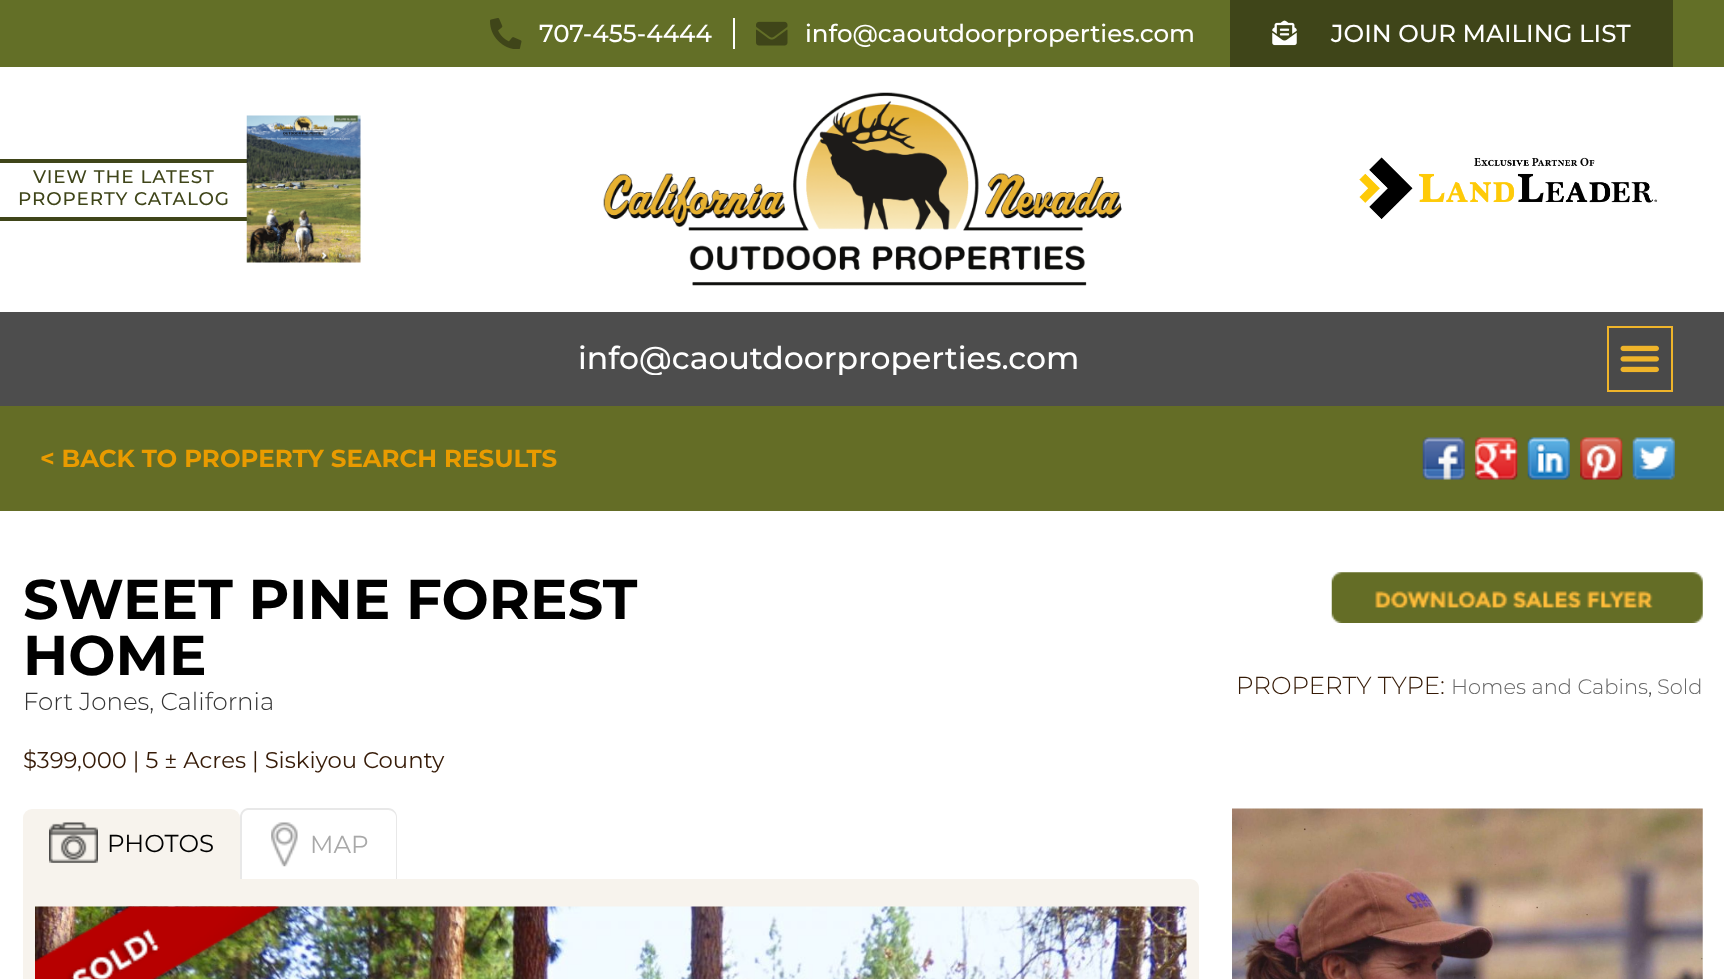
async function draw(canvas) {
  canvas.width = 1724
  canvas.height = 979
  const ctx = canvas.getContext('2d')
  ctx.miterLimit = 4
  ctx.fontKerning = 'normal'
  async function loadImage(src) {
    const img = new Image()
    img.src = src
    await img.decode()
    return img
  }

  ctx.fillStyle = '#fff'
  ctx.fillRect(0, 0, 1724, 979)
  ctx.fillStyle = '#636f27'
  ctx.fillRect(0, 0, 1724, 67)
  ctx.drawImage(await loadImage('image0.png'), 490, 18, 32, 31)
  ctx.font = '500 24.5px Montserrat'
  ctx.fillStyle = '#fff'
  ctx.fillText('707-455-4444', 539, 42)
  ctx.fillRect(733, 18, 2, 31)
  ctx.drawImage(await loadImage('image1.png'), 756, 21, 32, 25)
  ctx.fillText('info@caoutdoorproperties.com', 805, 42)
  ctx.fillStyle = '#3f4519'
  ctx.fillRect(1230, 0, 443, 67)
  ctx.drawImage(await loadImage('image2.png'), 1272, 20, 25, 26)
  ctx.fillStyle = '#fff'
  ctx.fillText('JOIN OUR MAILING LIST', 1331, 42)
  ctx.fillStyle = '#3f4519'
  ctx.fillRect(0, 159, 247, 4)
  ctx.fillRect(0, 217, 247, 4)
  ctx.letterSpacing = '0.9px'
  ctx.font = '500 18.4px Montserrat'
  ctx.fillText('VIEW THE LATEST', 33, 183)
  ctx.fillText('PROPERTY CATALOG', 18, 205)
  ctx.drawImage(await loadImage('image3.png'), 246, 115, 115, 148)
  ctx.drawImage(await loadImage('image4.png'), 603, 92, 519, 194)
  ctx.drawImage(await loadImage('image5.png'), 1359, 157, 299, 62)
  ctx.fillStyle = '#4d4d4d'
  ctx.fillRect(0, 312, 1724, 94)
  ctx.save()
  ctx.beginPath()
  ctx.rect(578, 343, 502, 32)
  ctx.clip()
  ctx.letterSpacing = '0px'
  ctx.font = '500 31.5px Montserrat'
  ctx.fillStyle = '#fff'
  ctx.fillText('info@caoutdoorproperties.com', 578, 369)
  ctx.restore()
  ctx.fillStyle = '#494949'
  ctx.beginPath()
  ctx.rect(1608, 327, 64, 64)
  ctx.fill()
  ctx.strokeStyle = '#efb42a'
  ctx.lineWidth = 2
  ctx.stroke()
  ctx.drawImage(await loadImage('image6.png'), 1620, 345, 39, 28)
  ctx.fillStyle = '#646d26'
  ctx.fillRect(0, 406, 1724, 105)
  ctx.letterSpacing = '0px'
  ctx.font = 'bold 24.5px Montserrat'
  ctx.fillStyle = '#e99b00'
  ctx.fillText('< BACK TO PROPERTY SEARCH RESULTS', 40, 467)
  ctx.drawImage(await loadImage('image7.png'), 1422, 437, 43, 43)
  ctx.drawImage(await loadImage('image8.png'), 1475, 437, 43, 43)
  ctx.drawImage(await loadImage('image9.png'), 1527, 437, 43, 43)
  ctx.drawImage(await loadImage('image10.png'), 1580, 437, 43, 43)
  ctx.drawImage(await loadImage('image11.png'), 1632, 437, 43, 43)
  ctx.font = 'bold 56px Montserrat'
  ctx.fillStyle = '#000'
  ctx.fillText('SWEET PINE FOREST', 23, 619)
  ctx.fillText('HOME', 23, 675)
  ctx.font = '300 24.5px Montserrat'
  ctx.fillStyle = '#333'
  ctx.fillText('Fort Jones, California', 23, 710)
  ctx.font = '22.75px Montserrat'
  ctx.fillStyle = '#361b07'
  ctx.fillText('$399,000 | 5 ± Acres | Siskiyou County', 23, 768)
  ctx.drawImage(await loadImage('image12.png'), 1331, 572, 372, 51)
  ctx.font = '300 24.5px Montserrat'
  ctx.fillText('PROPERTY TYPE:', 1236, 694)
  ctx.font = '300 21px Montserrat'
  ctx.fillStyle = '#666'
  ctx.fillText('Homes and Cabins', 1451, 694)
  ctx.fillStyle = '#333'
  ctx.fillText(',', 1648, 694)
  ctx.fillStyle = '#666'
  ctx.fillText('Sold', 1657, 694)
  ctx.fillStyle = '#e8e8e8'
  ctx.beginPath()
  ctx.moveTo(248, 808)
  ctx.lineTo(388, 808)
  ctx.bezierCurveTo(393, 808, 397, 812, 397, 817)
  ctx.lineTo(397, 898)
  ctx.lineTo(240, 898)
  ctx.lineTo(240, 817)
  ctx.bezierCurveTo(240, 812, 244, 808, 248, 808)
  ctx.closePath()
  ctx.moveTo(248, 810)
  ctx.lineTo(388, 810)
  ctx.bezierCurveTo(392, 810, 396, 813, 396, 817)
  ctx.lineTo(396, 898)
  ctx.lineTo(242, 898)
  ctx.lineTo(242, 817)
  ctx.bezierCurveTo(242, 813, 245, 810, 248, 810)
  ctx.closePath()
  ctx.fill('evenodd')
  ctx.fillStyle = '#f7f3ed'
  ctx.beginPath()
  ctx.moveTo(23, 879)
  ctx.lineTo(1190, 879)
  ctx.bezierCurveTo(1195, 879, 1199, 883, 1199, 888)
  ctx.lineTo(1199, 979)
  ctx.bezierCurveTo(1199, 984, 1195, 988, 1190, 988)
  ctx.lineTo(32, 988)
  ctx.bezierCurveTo(27, 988, 23, 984, 23, 979)
  ctx.closePath()
  ctx.fill()
  ctx.beginPath()
  ctx.roundRect(23, 809, 217, 87, [9, 9, 0, 0])
  ctx.fill()
  ctx.drawImage(await loadImage('image13.png'), 49, 822, 49, 41)
  ctx.font = '24.5px Montserrat'
  ctx.fillStyle = '#000'
  ctx.fillText('PHOTOS', 107, 852)
  ctx.drawImage(await loadImage('image14.png'), 271, 822, 27, 45)
  ctx.fillStyle = '#a9a9a9'
  ctx.fillText('MAP', 310, 853)
  ctx.drawImage(await loadImage('image15.png'), 35, 906, 1152, 73)
  ctx.drawImage(await loadImage('image16.png'), 35, 906, 267, 73)
  ctx.drawImage(await loadImage('image17.png'), 1232, 808, 471, 171)
}

draw(document.querySelector('canvas'))
